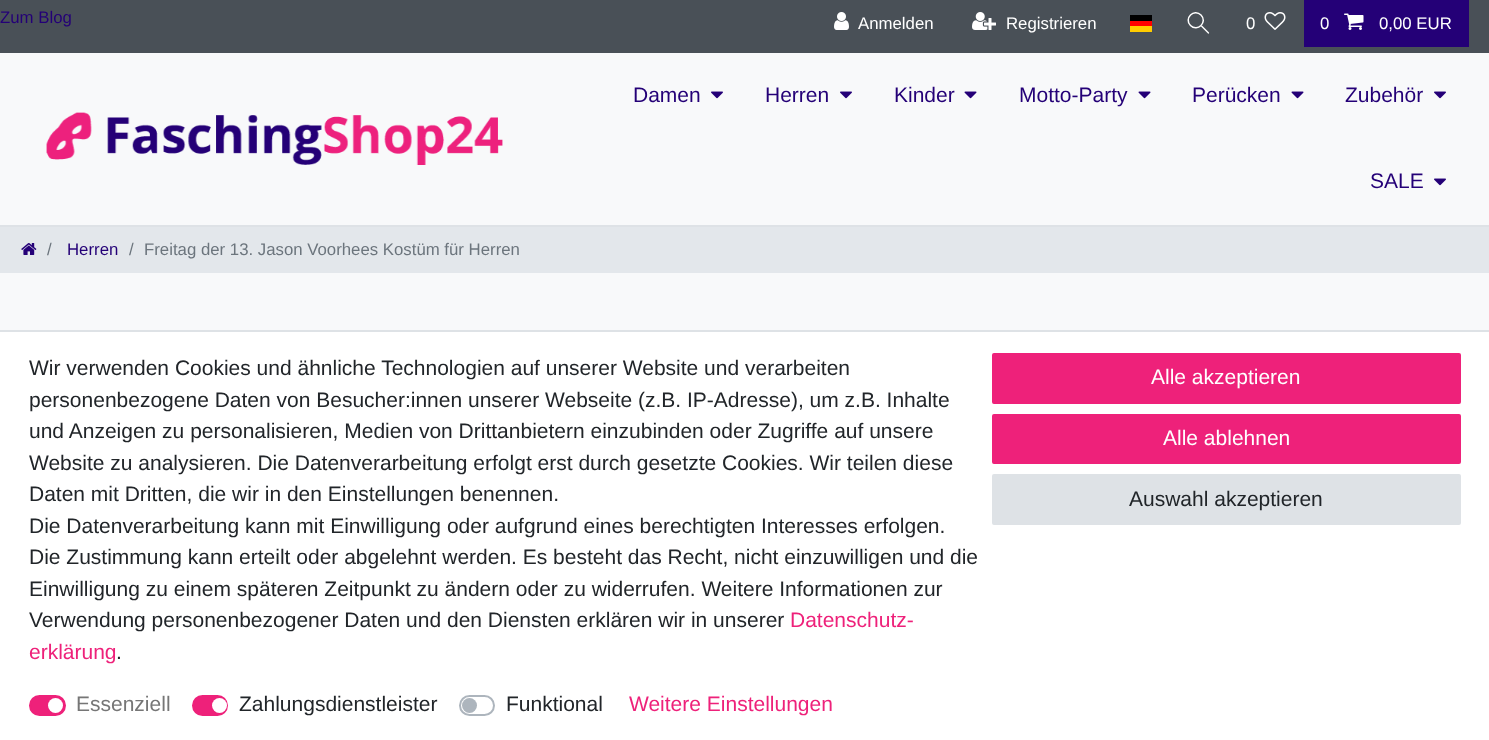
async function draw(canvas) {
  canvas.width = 1489
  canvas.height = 740
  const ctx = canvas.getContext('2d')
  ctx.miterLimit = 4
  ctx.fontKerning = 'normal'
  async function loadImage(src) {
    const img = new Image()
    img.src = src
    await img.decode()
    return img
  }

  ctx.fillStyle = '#f8f9fa'
  ctx.fillRect(0, 0, 1489, 740)
  ctx.fillStyle = '#495057'
  ctx.fillRect(0, 0, 1489, 53)
  ctx.font = '16.8px Liberation Sans'
  ctx.fillStyle = '#240077'
  ctx.fillText('Zum Blog', 0, 23)
  ctx.drawImage(await loadImage('image0.png'), 834, 12, 15, 18)
  ctx.fillStyle = '#fff'
  ctx.fillText('Anmelden', 858, 29)
  ctx.drawImage(await loadImage('image1.png'), 972, 12, 24, 18)
  ctx.fillText('Registrieren', 1006, 29)
  ctx.fillStyle = '#fc0'
  ctx.fillRect(1130, 26, 22, 6)
  ctx.fillStyle = '#000'
  ctx.fillRect(1130, 15, 22, 6)
  ctx.fillStyle = '#f00'
  ctx.fillRect(1130, 21, 22, 5)
  ctx.fillStyle = '#fff'
  ctx.beginPath()
  ctx.moveTo(1208, 33.5)
  ctx.lineTo(1193, 18.5)
  ctx.lineTo(1193, 18)
  ctx.bezierCurveTo(1193, 17.5, 1193.5, 17.5, 1194, 17.5)
  ctx.lineTo(1209, 32.5)
  ctx.bezierCurveTo(1209.5, 33.5, 1208.5, 34, 1208, 33.5)
  ctx.closePath()
  ctx.fill()
  ctx.fillStyle = '#495057'
  ctx.beginPath()
  ctx.moveTo(1190, 26)
  ctx.bezierCurveTo(1182, 18.5, 1194, 7, 1201.5, 14.5)
  ctx.bezierCurveTo(1209, 22, 1197.5, 34, 1190, 26)
  ctx.closePath()
  ctx.fill()
  ctx.beginPath()
  ctx.moveTo(1190.5, 25.5)
  ctx.bezierCurveTo(1183.5, 18.5, 1194, 8, 1201, 15)
  ctx.bezierCurveTo(1208, 22, 1197.5, 32.5, 1190.5, 25.5)
  ctx.closePath()
  ctx.strokeStyle = '#fff'
  ctx.lineWidth = 1.5
  ctx.stroke()
  ctx.fillStyle = '#fff'
  ctx.fillText('0', 1246, 29)
  ctx.drawImage(await loadImage('image2.png'), 1264, 12, 22, 18)
  ctx.fillStyle = '#240077'
  ctx.fillRect(1304, 0, 165, 47)
  ctx.fillStyle = '#fff'
  ctx.fillText('0', 1320, 29)
  ctx.drawImage(await loadImage('image3.png'), 1344, 13, 20, 17)
  ctx.fillText('0,00 EUR', 1379, 29)
  ctx.fillStyle = '#dee2e6'
  ctx.fillRect(0, 225, 1489, 2)
  ctx.drawImage(await loadImage('image4.png'), 46, 112, 457, 53)
  ctx.font = '21px Liberation Sans'
  ctx.fillStyle = '#240077'
  ctx.fillText('Damen', 633, 102)
  ctx.drawImage(await loadImage('image5.png'), 711, 91, 12, 8)
  ctx.fillText('Herren', 765, 102)
  ctx.drawImage(await loadImage('image5.png'), 840, 91, 12, 8)
  ctx.fillText('Kinder', 894, 102)
  ctx.drawImage(await loadImage('image6.png'), 964, 91, 13, 8)
  ctx.fillText('Motto-Party', 1019, 102)
  ctx.drawImage(await loadImage('image6.png'), 1138, 91, 13, 8)
  ctx.fillText('Perücken', 1192, 102)
  ctx.drawImage(await loadImage('image6.png'), 1291, 91, 13, 8)
  ctx.fillText('Zubehör', 1345, 102)
  ctx.drawImage(await loadImage('image5.png'), 1434, 91, 12, 8)
  ctx.fillText('SALE', 1370, 188)
  ctx.drawImage(await loadImage('image5.png'), 1434, 178, 12, 8)
  ctx.fillStyle = '#e3e7eb'
  ctx.fillRect(0, 227, 1489, 46)
  ctx.drawImage(await loadImage('image7.png'), 21, 243, 16, 12)
  ctx.font = '16.8px Liberation Sans'
  ctx.fillStyle = '#6c757d'
  ctx.fillText('/', 47, 255)
  ctx.fillStyle = '#240077'
  ctx.fillText('Herren', 67, 255)
  ctx.fillStyle = '#6c757d'
  ctx.fillText('/', 129, 255)
  ctx.fillText('Freitag der 13. Jason Voorhees Kostüm für Herren', 144, 255)
  ctx.fillStyle = '#fff'
  ctx.fillRect(0, 332, 1489, 408)
  ctx.fillStyle = '#dee2e6'
  ctx.fillRect(0, 330, 1489, 2)
  ctx.font = '21px Liberation Sans'
  ctx.fillStyle = '#212529'
  ctx.fillText('Wir verwenden Cookies und ähnliche Technologien auf unserer Website und verarbeiten', 29, 375)
  ctx.fillText('personenbezogene Daten von Besucher:innen unserer Webseite (z.B. IP-Adresse), um z.B. Inhalte', 29, 407)
  ctx.fillText('und Anzeigen zu personalisieren, Medien von Drittanbietern einzubinden oder Zugriffe auf unsere', 29, 438)
  ctx.fillText('Website zu analysieren. Die Datenverarbeitung erfolgt erst durch gesetzte Cookies. Wir teilen diese', 29, 470)
  ctx.fillText('Daten mit Dritten, die wir in den Einstellungen benennen.', 29, 501)
  ctx.fillText('Die Datenverarbeitung kann mit Einwilligung oder aufgrund eines berechtigten Interesses erfolgen.', 29, 533)
  ctx.fillText('Die Zustimmung kann erteilt oder abgelehnt werden. Es besteht das Recht, nicht einzuwilligen und die', 29, 564)
  ctx.fillText('Einwilligung zu einem späteren Zeitpunkt zu ändern oder zu widerrufen. Weitere Informationen zur', 29, 596)
  ctx.fillText('Verwendung personenbezogener Daten und den Diensten erklären wir in unserer', 29, 627)
  ctx.fillStyle = '#ee217a'
  ctx.fillText('Datenschutz-', 790, 627)
  ctx.fillText('erklärung', 29, 659)
  ctx.fillStyle = '#212529'
  ctx.fillText('.', 116, 659)
  ctx.fillStyle = '#ee217a'
  ctx.beginPath()
  ctx.roundRect(30, 696, 35, 19, 9.5)
  ctx.fill()
  ctx.strokeStyle = '#ee217a'
  ctx.lineWidth = 2
  ctx.stroke()
  ctx.fillStyle = '#767676'
  ctx.fillText('Essenziell', 76, 711)
  ctx.fillStyle = '#fff'
  ctx.beginPath()
  ctx.arc(55.5, 705.5, 7.5, 0, 2 * Math.PI)
  ctx.fill()
  ctx.fillStyle = '#ee217a'
  ctx.beginPath()
  ctx.roundRect(193, 696, 34, 19, 9.5)
  ctx.fill()
  ctx.stroke()
  ctx.fillStyle = '#212529'
  ctx.fillText('Zahlungsdienstleister', 239, 711)
  ctx.fillStyle = '#fff'
  ctx.beginPath()
  ctx.arc(219.5, 705.5, 7.5, 0, 2 * Math.PI)
  ctx.fill()
  ctx.beginPath()
  ctx.roundRect(460, 696, 34, 19, 9.5)
  ctx.strokeStyle = '#adb5bd'
  ctx.stroke()
  ctx.fillStyle = '#212529'
  ctx.fillText('Funktional', 506, 711)
  ctx.fillStyle = '#adb5bd'
  ctx.beginPath()
  ctx.arc(469.5, 705.5, 7.5, 0, 2 * Math.PI)
  ctx.fill()
  ctx.fillStyle = '#ee217a'
  ctx.fillText('Weitere Einstellungen', 629, 711)
  ctx.beginPath()
  ctx.roundRect(993, 354, 467, 49, 1)
  ctx.fill()
  ctx.strokeStyle = '#ee217a'
  ctx.stroke()
  ctx.fillStyle = '#fff'
  ctx.fillText('Alle akzeptieren', 1151, 384)
  ctx.fillStyle = '#ee217a'
  ctx.beginPath()
  ctx.roundRect(993, 415, 467, 48, 1)
  ctx.fill()
  ctx.stroke()
  ctx.fillStyle = '#fff'
  ctx.fillText('Alle ablehnen', 1163, 445)
  ctx.fillStyle = '#dee2e6'
  ctx.beginPath()
  ctx.roundRect(993, 475, 467, 49, 1)
  ctx.fill()
  ctx.strokeStyle = '#dee2e6'
  ctx.stroke()
  ctx.fillStyle = '#212529'
  ctx.fillText('Auswahl akzeptieren', 1129, 506)
}

draw(document.querySelector('canvas'))
